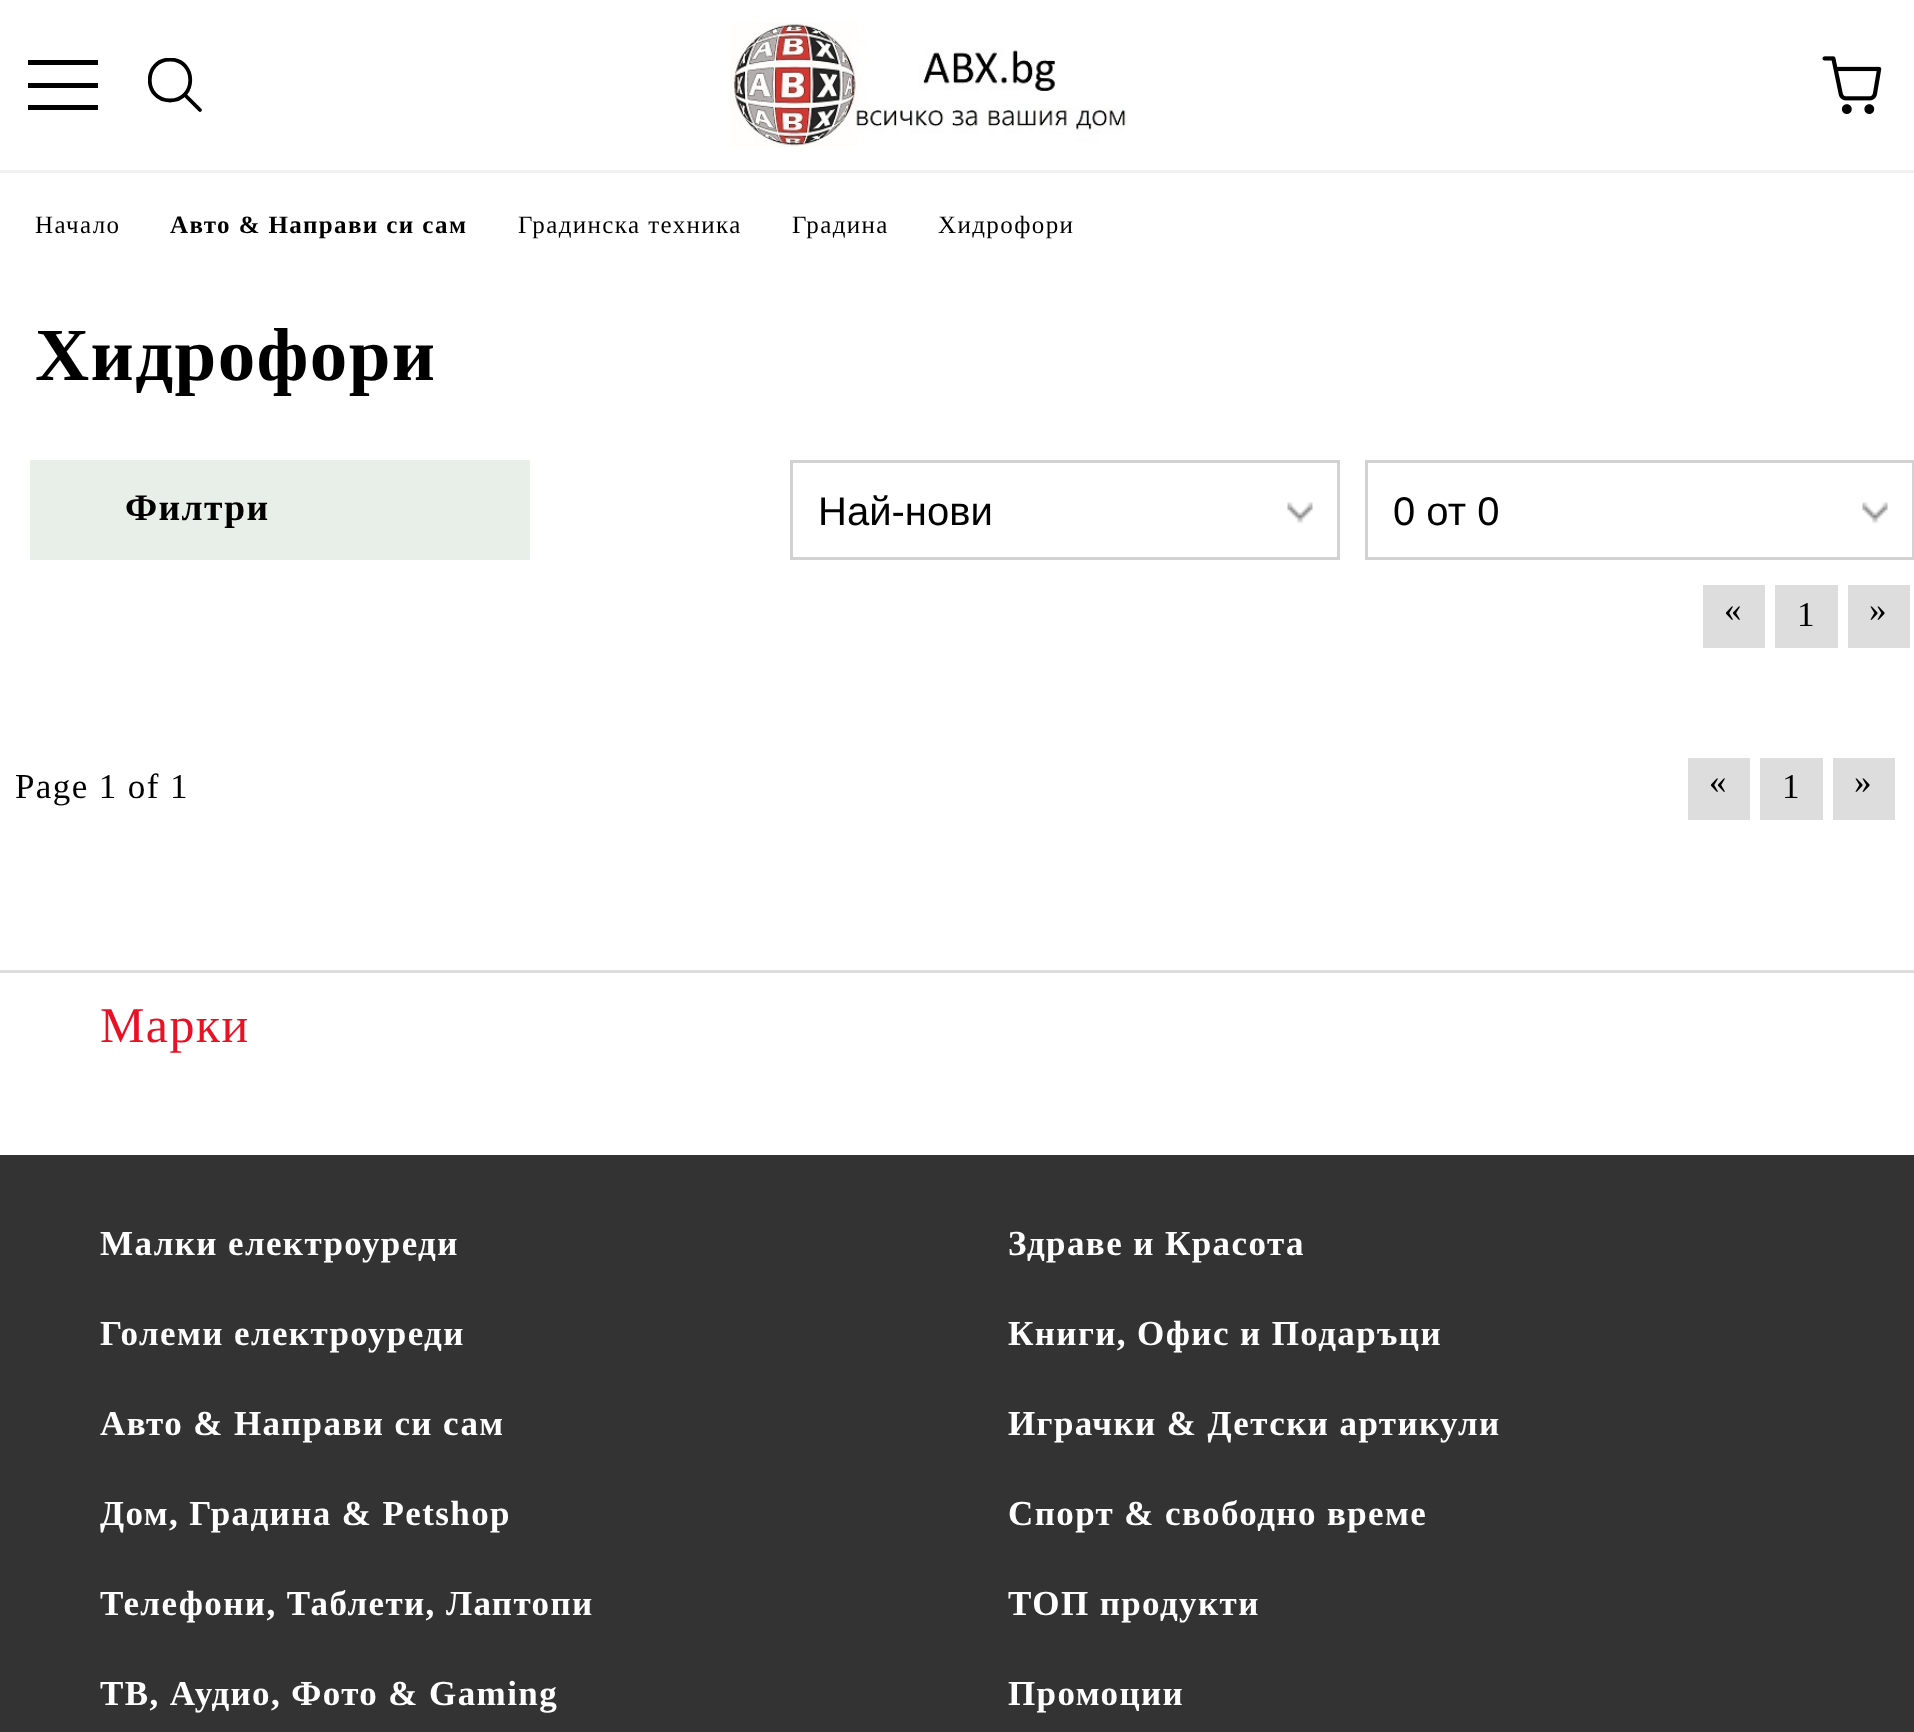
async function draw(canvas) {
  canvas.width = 1914
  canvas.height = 1732
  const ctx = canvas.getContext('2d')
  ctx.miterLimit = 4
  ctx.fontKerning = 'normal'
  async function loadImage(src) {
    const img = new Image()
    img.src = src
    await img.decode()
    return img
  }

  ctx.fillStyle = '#fff'
  ctx.fillRect(0, 0, 1914, 1732)
  ctx.fillStyle = '#f1f1f1'
  ctx.fillRect(0, 170, 1914, 3)
  ctx.fillStyle = '#000'
  ctx.fillRect(28, 60, 70, 5)
  ctx.fillRect(28, 83, 70, 5)
  ctx.fillRect(28, 105, 70, 5)
  ctx.save()
  ctx.beginPath()
  ctx.rect(148, 58, 55, 55)
  ctx.clip()
  ctx.beginPath()
  ctx.moveTo(170, 59.5)
  ctx.bezierCurveTo(143, 59.5, 143, 100.5, 170, 100.5)
  ctx.bezierCurveTo(197, 100.5, 197, 59.5, 170, 59.5)
  ctx.closePath()
  ctx.strokeStyle = '#000'
  ctx.lineWidth = 3.8
  ctx.stroke()
  ctx.restore()
  ctx.beginPath()
  ctx.moveTo(185.5, 95.5)
  ctx.lineTo(200, 110)
  ctx.strokeStyle = '#000'
  ctx.lineWidth = 3.8
  ctx.lineCap = 'round'
  ctx.stroke()
  ctx.drawImage(await loadImage('image0.png'), 730, 22, 398, 126)
  ctx.drawImage(await loadImage('image1.png'), 1822, 56, 60, 58)
  ctx.letterSpacing = '1.4px'
  ctx.font = '25px Liberation Serif'
  ctx.fillText('Начало', 35, 233)
  ctx.font = 'bold 25px Liberation Serif'
  ctx.fillText('Авто & Направи си сам', 170, 233)
  ctx.font = '25px Liberation Serif'
  ctx.fillText('Градинска техника', 518, 233)
  ctx.fillText('Градина', 792, 233)
  ctx.fillText('Хидрофори', 938, 233)
  ctx.font = 'bold 75px Liberation Serif'
  ctx.fillText('Хидрофори', 35, 380)
  ctx.fillStyle = '#e8efe8'
  ctx.fillRect(30, 460, 500, 100)
  ctx.font = 'bold 37.5px Liberation Serif'
  ctx.fillStyle = '#000'
  ctx.fillText('Филтри', 125, 520)
  ctx.drawImage(await loadImage('image2.png'), 1287, 502, 26, 22)
  ctx.strokeStyle = '#d2d2d2'
  ctx.lineWidth = 3
  ctx.strokeRect(791.5, 461.5, 547, 97)
  ctx.letterSpacing = '0px'
  ctx.font = '40px Liberation Sans'
  ctx.fillText('Най-нови', 818, 525)
  ctx.drawImage(await loadImage('image2.png'), 1862, 502, 26, 22)
  ctx.strokeRect(1366.5, 461.5, 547, 97)
  ctx.fillText('0 от 0', 1393, 525)
  ctx.fillStyle = '#ddd'
  ctx.fillRect(1703, 585, 62, 63)
  ctx.letterSpacing = '1.4px'
  ctx.font = '35px Liberation Serif'
  ctx.fillStyle = '#000'
  ctx.fillText('«', 1724, 621)
  ctx.fillStyle = '#ddd'
  ctx.fillRect(1775, 585, 63, 63)
  ctx.fillStyle = '#000'
  ctx.fillText('1', 1797, 626)
  ctx.fillStyle = '#ddd'
  ctx.fillRect(1848, 585, 62, 63)
  ctx.fillStyle = '#000'
  ctx.fillText('»', 1869, 621)
  ctx.fillText('Page 1 of 1', 15, 798)
  ctx.fillStyle = '#ddd'
  ctx.fillRect(1688, 758, 62, 62)
  ctx.fillStyle = '#000'
  ctx.fillText('«', 1709, 793)
  ctx.fillStyle = '#ddd'
  ctx.fillRect(1760, 758, 63, 62)
  ctx.fillStyle = '#000'
  ctx.fillText('1', 1782, 798)
  ctx.fillStyle = '#ddd'
  ctx.fillRect(1833, 758, 62, 62)
  ctx.fillStyle = '#000'
  ctx.fillText('»', 1854, 793)
  ctx.fillStyle = '#ddd'
  ctx.fillRect(0, 970, 1914, 3)
  ctx.font = '50px Liberation Serif'
  ctx.fillStyle = '#e81225'
  ctx.fillText('Марки', 100, 1042)
  ctx.fillStyle = '#333'
  ctx.fillRect(0, 1155, 1914, 577)
  ctx.font = 'bold 35px Liberation Serif'
  ctx.fillStyle = '#fff'
  ctx.fillText('Малки електроуреди', 100, 1255)
  ctx.fillText('Големи електроуреди', 100, 1345)
  ctx.fillText('Авто & Направи си сам', 100, 1435)
  ctx.fillText('Дом, Градина & Petshop', 100, 1525)
  ctx.fillText('Телефони, Таблети, Лаптопи', 100, 1615)
  ctx.fillText('ТВ, Аудио, Фото & Gaming', 100, 1705)
  ctx.fillText('Здраве и Красота', 1008, 1255)
  ctx.fillText('Книги, Офис и Подаръци', 1008, 1345)
  ctx.fillText('Играчки & Детски артикули', 1008, 1435)
  ctx.fillText('Спорт & свободно време', 1008, 1525)
  ctx.fillText('ТОП продукти', 1008, 1615)
  ctx.fillText('Промоции', 1008, 1705)
}

draw(document.querySelector('canvas'))
